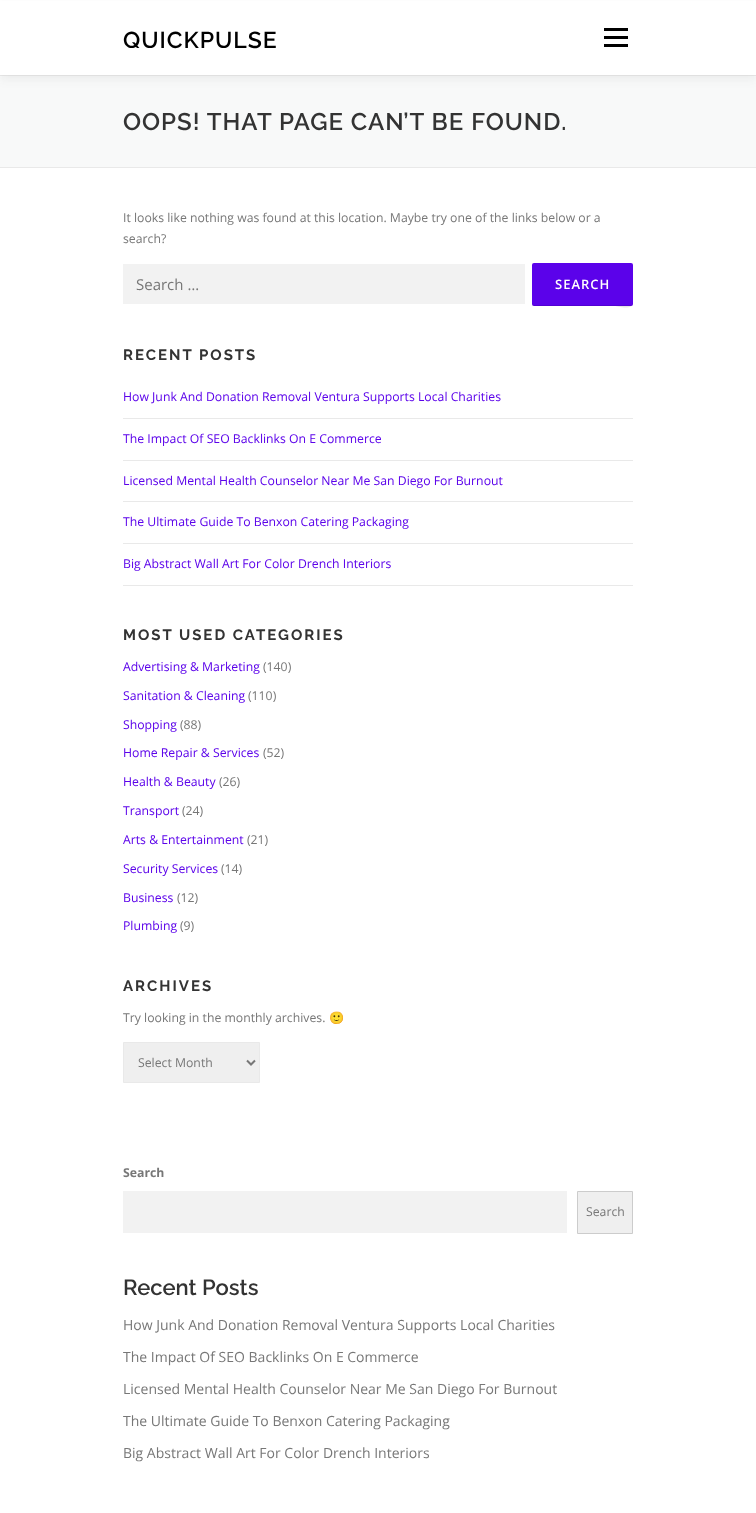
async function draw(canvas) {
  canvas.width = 756
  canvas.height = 1513
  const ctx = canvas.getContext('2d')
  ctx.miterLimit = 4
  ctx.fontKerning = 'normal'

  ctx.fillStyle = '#fff'
  ctx.fillRect(0, 0, 756, 1513)
  ctx.fillStyle = '#f8f9f9'
  ctx.fillRect(0, 76, 756, 91)
  ctx.fillStyle = '#e9e9e9'
  ctx.fillRect(0, 75, 756, 1)
  ctx.fillStyle = '#3232320f'
  ctx.filter = 'blur(5px)'
  ctx.beginPath()
  ctx.rect(0, 5, 756, 75)
  ctx.fill()
  ctx.filter = 'none'
  ctx.fillStyle = '#fff'
  ctx.fillRect(0, 1, 756, 74)
  ctx.letterSpacing = '1px'
  ctx.font = '600 23px Raleway'
  ctx.fillStyle = '#000'
  ctx.fillText('QUICKPULSE', 123, 48)
  ctx.fillRect(604, 36, 24, 3)
  ctx.fillRect(604, 28, 24, 3)
  ctx.fillRect(604, 44, 24, 3)
  ctx.fillStyle = '#e9e9e9'
  ctx.fillRect(0, 167, 756, 1)
  ctx.font = '600 24px Raleway'
  ctx.fillStyle = '#333'
  ctx.fillText('OOPS! THAT PAGE CAN’T BE FOUND.', 123, 130)
  ctx.letterSpacing = '0px'
  ctx.font = '12.25px Open Sans'
  ctx.fillStyle = '#777'
  ctx.fillText('It looks like nothing was found at this location. Maybe try one of the links below or a', 123, 222)
  ctx.fillText('search?', 123, 243)
  ctx.fillStyle = '#f2f2f2'
  ctx.fillRect(123, 264, 402, 40)
  ctx.font = '15px Open Sans'
  ctx.fillStyle = '#777'
  ctx.fillText('Search …', 136, 290)
  ctx.fillStyle = '#5b02ea'
  ctx.beginPath()
  ctx.roundRect(532, 263, 101, 43, 2)
  ctx.fill()
  ctx.fillStyle = '#0000001a'
  ctx.beginPath()
  ctx.moveTo(532, 303)
  ctx.bezierCurveTo(532, 304, 532, 306, 534, 306)
  ctx.lineTo(615, 306)
  ctx.bezierCurveTo(616, 306, 633, 311, 633, 303)
  ctx.bezierCurveTo(633, 304, 632, 305, 631, 305)
  ctx.lineTo(534, 305)
  ctx.bezierCurveTo(533, 305, 532, 304, 532, 303)
  ctx.closePath()
  ctx.fill()
  ctx.letterSpacing = '1px'
  ctx.font = '600 13px Open Sans'
  ctx.fillStyle = '#fff'
  ctx.fillText('SEARCH', 555, 289)
  ctx.letterSpacing = '2px'
  ctx.font = 'bold 15px Raleway'
  ctx.fillStyle = '#333'
  ctx.fillText('RECENT POSTS', 123, 360)
  ctx.fillStyle = '#e9e9e9'
  ctx.fillRect(123, 418, 510, 1)
  ctx.letterSpacing = '0px'
  ctx.font = '12.25px Open Sans'
  ctx.fillStyle = '#5b02ea'
  ctx.fillText('How Junk And Donation Removal Ventura Supports Local Charities', 123, 401)
  ctx.fillStyle = '#e9e9e9'
  ctx.fillRect(123, 460, 510, 1)
  ctx.fillStyle = '#5b02ea'
  ctx.fillText('The Impact Of SEO Backlinks On E Commerce', 123, 443)
  ctx.fillStyle = '#e9e9e9'
  ctx.fillRect(123, 501, 510, 1)
  ctx.fillStyle = '#5b02ea'
  ctx.fillText('Licensed Mental Health Counselor Near Me San Diego For Burnout', 123, 485)
  ctx.fillStyle = '#e9e9e9'
  ctx.fillRect(123, 543, 510, 1)
  ctx.fillStyle = '#5b02ea'
  ctx.fillText('The Ultimate Guide To Benxon Catering Packaging', 123, 526)
  ctx.fillStyle = '#e9e9e9'
  ctx.fillRect(123, 585, 510, 1)
  ctx.fillStyle = '#5b02ea'
  ctx.fillText('Big Abstract Wall Art For Color Drench Interiors', 123, 568)
  ctx.letterSpacing = '2px'
  ctx.font = 'bold 15px Raleway'
  ctx.fillStyle = '#333'
  ctx.fillText('MOST USED CATEGORIES', 123, 640)
  ctx.letterSpacing = '0px'
  ctx.font = '12.25px Open Sans'
  ctx.fillStyle = '#5b02ea'
  ctx.fillText('Advertising & Marketing', 123, 671)
  ctx.fillStyle = '#777'
  ctx.fillText('(140)', 263, 671)
  ctx.fillStyle = '#5b02ea'
  ctx.fillText('Sanitation & Cleaning', 123, 700)
  ctx.fillStyle = '#777'
  ctx.fillText('(110)', 248, 700)
  ctx.fillStyle = '#5b02ea'
  ctx.fillText('Shopping', 123, 729)
  ctx.fillStyle = '#777'
  ctx.fillText('(88)', 180, 729)
  ctx.fillStyle = '#5b02ea'
  ctx.fillText('Home Repair & Services', 123, 757)
  ctx.fillStyle = '#777'
  ctx.fillText('(52)', 263, 757)
  ctx.fillStyle = '#5b02ea'
  ctx.fillText('Health & Beauty', 123, 786)
  ctx.fillStyle = '#777'
  ctx.fillText('(26)', 219, 786)
  ctx.fillStyle = '#5b02ea'
  ctx.fillText('Transport', 123, 815)
  ctx.fillStyle = '#777'
  ctx.fillText('(24)', 182, 815)
  ctx.fillStyle = '#5b02ea'
  ctx.fillText('Arts & Entertainment', 123, 844)
  ctx.fillStyle = '#777'
  ctx.fillText('(21)', 247, 844)
  ctx.fillStyle = '#5b02ea'
  ctx.fillText('Security Services', 123, 873)
  ctx.fillStyle = '#777'
  ctx.fillText('(14)', 221, 873)
  ctx.fillStyle = '#5b02ea'
  ctx.fillText('Business', 123, 902)
  ctx.fillStyle = '#777'
  ctx.fillText('(12)', 177, 902)
  ctx.fillStyle = '#5b02ea'
  ctx.fillText('Plumbing', 123, 930)
  ctx.fillStyle = '#777'
  ctx.fillText('(9)', 180, 930)
  ctx.letterSpacing = '2px'
  ctx.font = 'bold 15px Raleway'
  ctx.fillStyle = '#333'
  ctx.fillText('ARCHIVES', 123, 991)
  ctx.letterSpacing = '0px'
  ctx.font = '12.25px Open Sans'
  ctx.fillStyle = '#777'
  ctx.fillText('Try looking in the monthly archives.', 123, 1022)
  ctx.font = '12.25px Noto Color Emoji'
  ctx.fillText('🙂', 329, 1022)
  ctx.fillStyle = '#efefef'
  ctx.beginPath()
  ctx.rect(123.5, 1042.5, 136, 40)
  ctx.fill()
  ctx.strokeStyle = '#e9e9e9'
  ctx.stroke()
  ctx.beginPath()
  ctx.moveTo(247, 1060.5)
  ctx.lineTo(251, 1064.5)
  ctx.lineTo(255, 1060.5)
  ctx.strokeStyle = '#777'
  ctx.lineWidth = 2
  ctx.stroke()
  ctx.font = '12.25px Open Sans'
  ctx.fillStyle = '#777'
  ctx.fillText('Select Month', 138, 1067)
  ctx.font = 'bold 12.25px Open Sans'
  ctx.fillText('Search', 123, 1177)
  ctx.fillStyle = '#f2f2f2'
  ctx.fillRect(123, 1191, 444, 42)
  ctx.fillStyle = '#efefef'
  ctx.beginPath()
  ctx.rect(577.5, 1191.5, 55, 42)
  ctx.fill()
  ctx.strokeStyle = '#ccc'
  ctx.lineWidth = 1
  ctx.stroke()
  ctx.font = '12.25px Open Sans'
  ctx.fillStyle = '#777'
  ctx.fillText('Search', 586, 1216)
  ctx.font = '600 22px Raleway'
  ctx.fillStyle = '#333'
  ctx.fillText('Recent Posts', 123, 1295)
  ctx.font = '14px Open Sans'
  ctx.fillStyle = '#777'
  ctx.fillText('How Junk And Donation Removal Ventura Supports Local Charities', 123, 1330)
  ctx.fillText('The Impact Of SEO Backlinks On E Commerce', 123, 1362)
  ctx.fillText('Licensed Mental Health Counselor Near Me San Diego For Burnout', 123, 1394)
  ctx.fillText('The Ultimate Guide To Benxon Catering Packaging', 123, 1426)
  ctx.fillText('Big Abstract Wall Art For Color Drench Interiors', 123, 1458)
}

draw(document.querySelector('canvas'))
